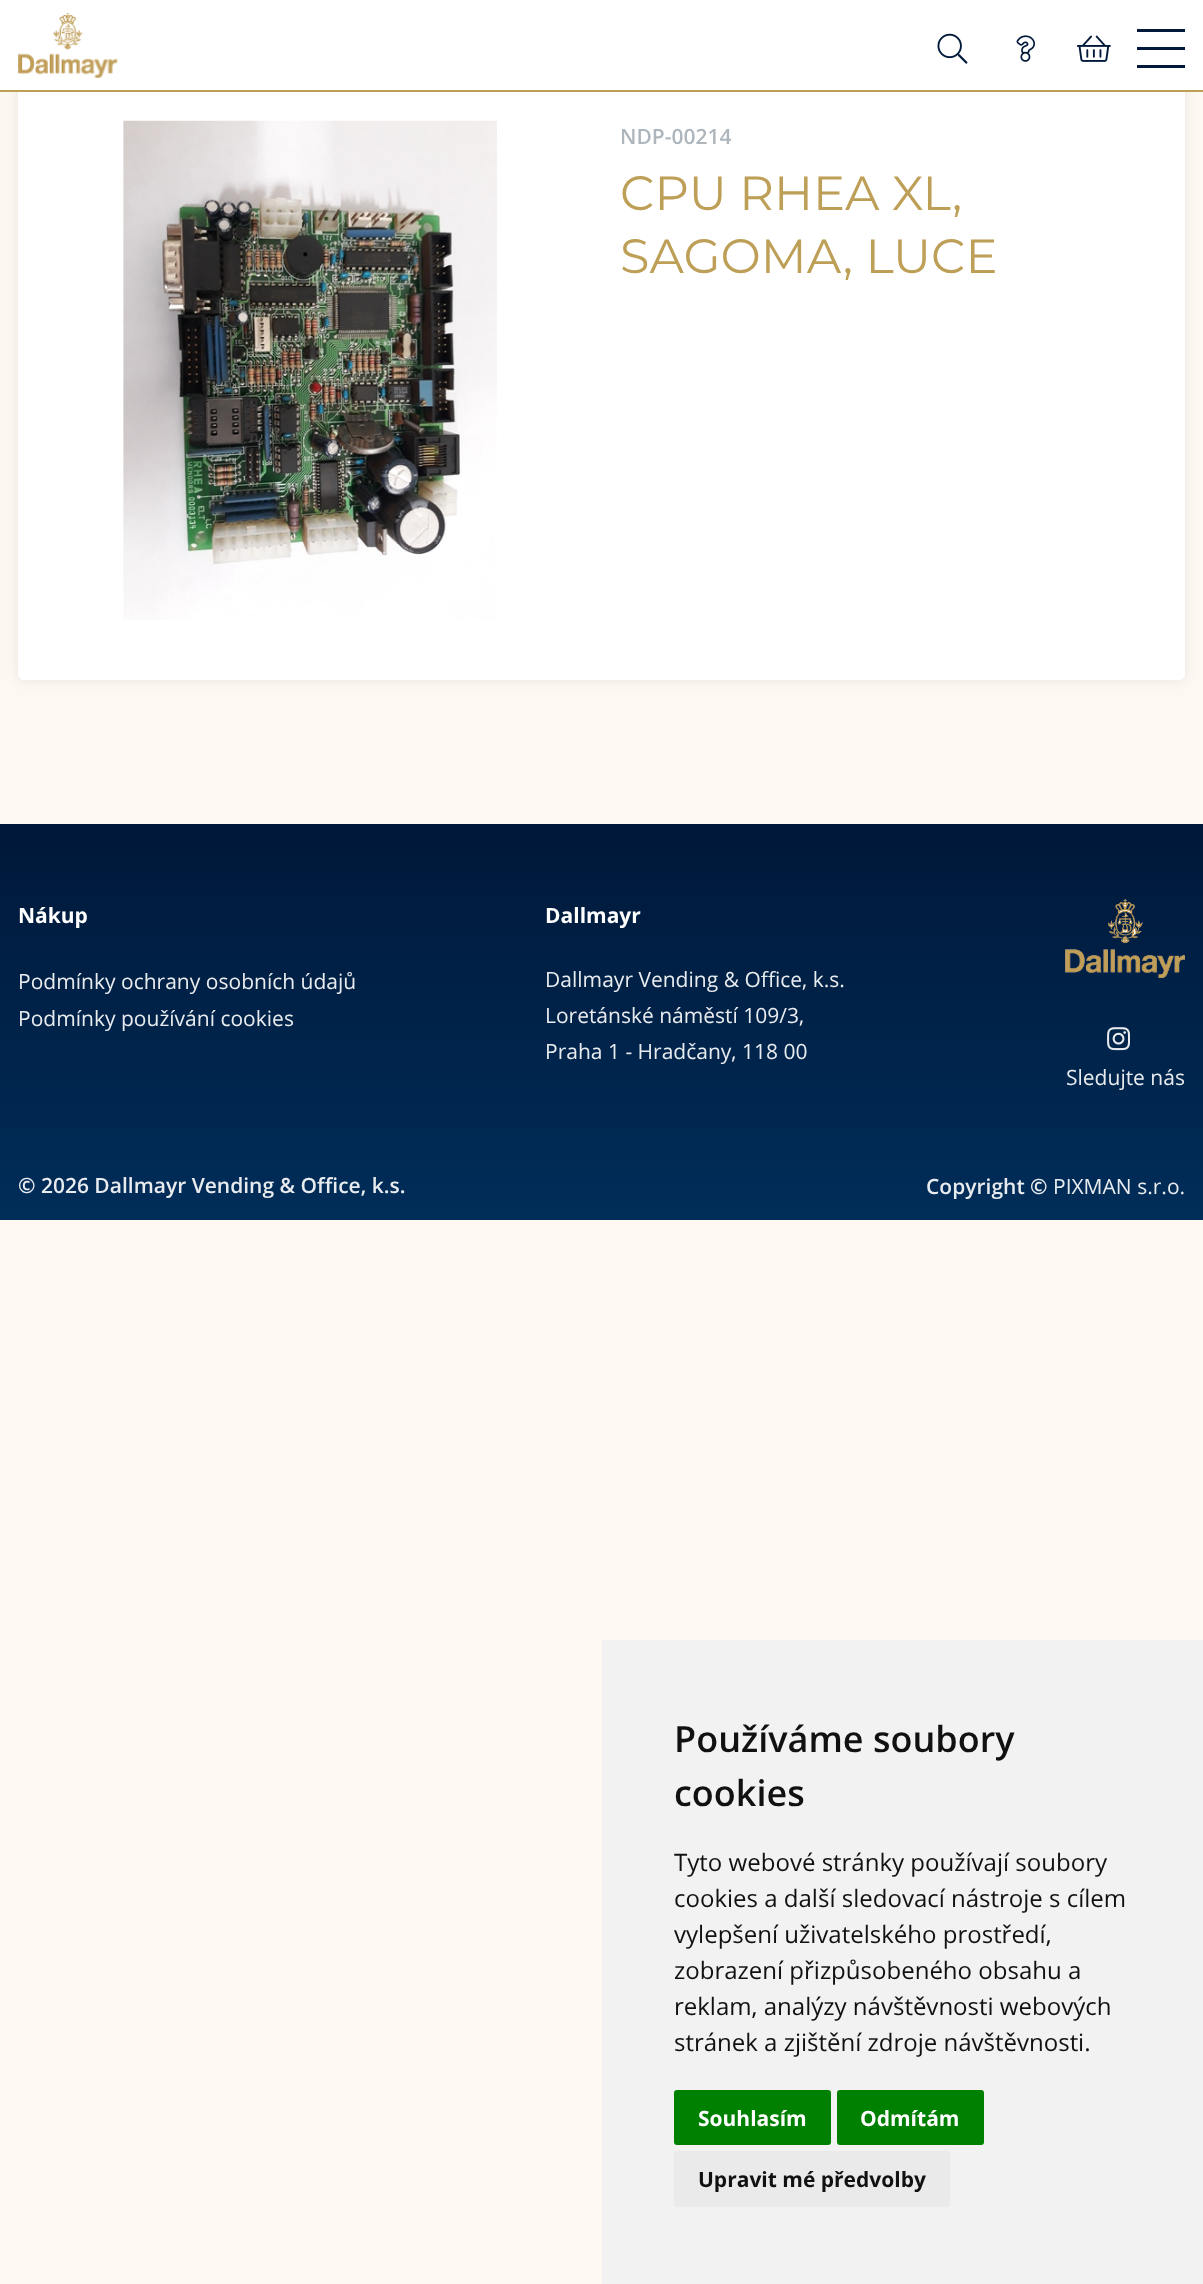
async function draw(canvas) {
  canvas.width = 1203
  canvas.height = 2284
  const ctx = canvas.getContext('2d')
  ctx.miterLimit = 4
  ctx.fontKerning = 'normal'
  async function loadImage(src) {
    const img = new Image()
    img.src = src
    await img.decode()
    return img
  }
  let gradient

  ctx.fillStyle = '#fdf8f2'
  ctx.fillRect(0, 0, 1203, 2284)
  ctx.fillStyle = '#3232321a'
  ctx.filter = 'blur(6px)'
  ctx.beginPath()
  ctx.roundRect(18, 60, 1167, 620, 6)
  ctx.fill()
  ctx.filter = 'none'
  ctx.fillStyle = '#fff'
  ctx.beginPath()
  ctx.roundRect(18, 60, 1167, 620, 6)
  ctx.fill()
  ctx.fillRect(0, 0, 1203, 90)
  ctx.fillStyle = '#be9f57'
  ctx.fillRect(0, 90, 1203, 2)
  ctx.drawImage(await loadImage('image0.png'), 18, 12, 100, 66)
  ctx.drawImage(await loadImage('image1.png'), 937, 33, 31, 31)
  ctx.drawImage(await loadImage('image2.png'), 1016, 35, 19, 27)
  ctx.drawImage(await loadImage('image3.png'), 1077, 35, 34, 27)
  ctx.fillStyle = '#001839'
  ctx.fillRect(1137, 47, 48, 3)
  ctx.fillRect(1137, 29, 48, 3)
  ctx.fillRect(1137, 65, 48, 3)
  ctx.drawImage(await loadImage('image4.png'), 123, 120, 374, 500)
  ctx.font = '600 21px Open Sans'
  ctx.fillStyle = '#adb5bd'
  ctx.fillText('NDP-00214', 620, 144)
  ctx.font = '48px Montserrat'
  ctx.fillStyle = '#be9f57'
  ctx.fillText('CPU RHEA XL,', 620, 210)
  ctx.fillText('SAGOMA, LUCE', 620, 273)
  gradient = ctx.createLinearGradient(602, 824, 602, 1220)
  gradient.addColorStop(0, '#001839')
  gradient.addColorStop(1, '#002d59')
  ctx.fillStyle = gradient
  ctx.fillRect(0, 824, 1203, 396)
  ctx.font = 'bold 21px Open Sans'
  ctx.fillStyle = '#fff'
  ctx.fillText('Nákup', 18, 923)
  ctx.font = '21px Open Sans'
  ctx.fillStyle = '#e9ecef'
  ctx.fillText('Podmínky ochrany osobních údajů', 18, 989)
  ctx.fillText('Podmínky používání cookies', 18, 1026)
  ctx.font = 'bold 21px Open Sans'
  ctx.fillStyle = '#fff'
  ctx.fillText('Dallmayr', 545, 923)
  ctx.font = '21px Open Sans'
  ctx.fillStyle = '#e9ecef'
  ctx.fillText('Dallmayr Vending & Office, k.s.', 545, 987)
  ctx.fillText('Loretánské náměstí 109/3,', 545, 1023)
  ctx.fillText('Praha 1 - Hradčany, 118 00', 545, 1059)
  ctx.drawImage(await loadImage('image5.png'), 1065, 898, 120, 80)
  ctx.drawImage(await loadImage('image6.png'), 1107, 1027, 23, 24)
  ctx.fillText('Sledujte nás', 1066, 1085)
  ctx.font = '600 21px Open Sans'
  ctx.fillText('© 2026 Dallmayr Vending & Office, k.s.', 18, 1193)
  ctx.fillText('Copyright ©', 926, 1194)
  ctx.font = '21px Open Sans'
  ctx.fillText('PIXMAN s.r.o.', 1053, 1194)
  ctx.fillStyle = '#f2f2f2'
  ctx.fillRect(602, 1640, 601, 644)
  ctx.font = '600 36px Open Sans'
  ctx.fillStyle = '#111'
  ctx.fillText('Používáme soubory', 674, 1752)
  ctx.fillText('cookies', 674, 1806)
  ctx.font = '24px Open Sans'
  ctx.fillText('Tyto webové stránky používají soubory', 674, 1871)
  ctx.fillText('cookies a další sledovací nástroje s cílem', 674, 1907)
  ctx.fillText('vylepšení uživatelského prostředí,', 674, 1943)
  ctx.fillText('zobrazení přizpůsobeného obsahu a', 674, 1979)
  ctx.fillText('reklam, analýzy návštěvnosti webových', 674, 2015)
  ctx.fillText('stránek a zjištění zdroje návštěvnosti.', 674, 2051)
  ctx.fillStyle = '#008000'
  ctx.beginPath()
  ctx.roundRect(674, 2090, 157, 55, 3)
  ctx.fill()
  ctx.font = 'bold 21px Open Sans'
  ctx.fillStyle = '#fff'
  ctx.fillText('Souhlasím', 698, 2126)
  ctx.fillStyle = '#008000'
  ctx.beginPath()
  ctx.roundRect(837, 2090, 147, 55, 3)
  ctx.fill()
  ctx.fillStyle = '#fff'
  ctx.fillText('Odmítám', 860, 2126)
  ctx.fillStyle = '#eaeaea'
  ctx.beginPath()
  ctx.roundRect(674, 2151, 276, 56, 3)
  ctx.fill()
  ctx.fillStyle = '#111'
  ctx.fillText('Upravit mé předvolby', 698, 2187)
}

draw(document.querySelector('canvas'))
